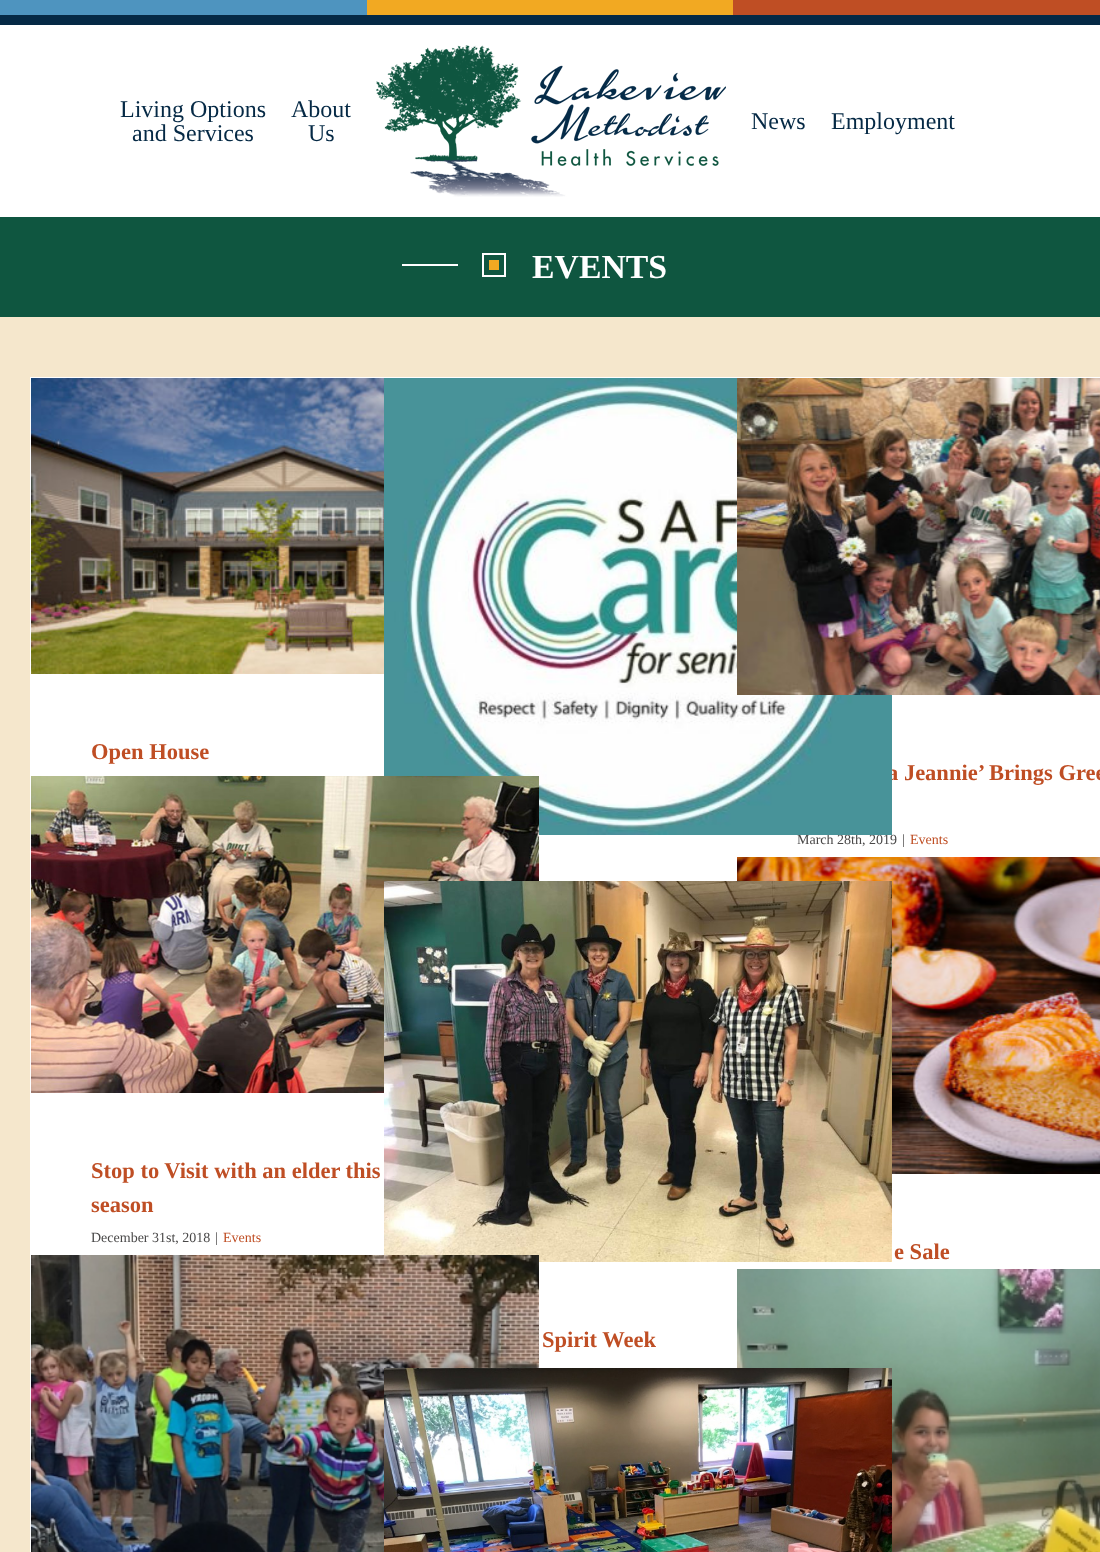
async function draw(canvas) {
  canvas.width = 1100
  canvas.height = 1552
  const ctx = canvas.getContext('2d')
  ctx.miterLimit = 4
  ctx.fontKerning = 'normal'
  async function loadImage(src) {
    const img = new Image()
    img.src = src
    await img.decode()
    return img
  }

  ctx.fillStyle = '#f5e7cc'
  ctx.fillRect(0, 0, 1100, 1552)
  ctx.fillStyle = '#4e94bf'
  ctx.fillRect(0, 0, 367, 15)
  ctx.fillStyle = '#f2a922'
  ctx.fillRect(367, 0, 366, 15)
  ctx.fillStyle = '#bf4e24'
  ctx.fillRect(733, 0, 367, 15)
  ctx.fillStyle = '#052945'
  ctx.fillRect(0, 15, 1100, 10)
  ctx.fillStyle = '#fff'
  ctx.fillRect(0, 25, 1100, 192)
  ctx.font = '24px Liberation Serif'
  ctx.fillStyle = '#052945'
  ctx.fillText('Living Options', 120, 117)
  ctx.fillText('and Services', 132, 141)
  ctx.fillText('About', 291, 117)
  ctx.fillText('Us', 308, 141)
  ctx.drawImage(await loadImage('image0.png'), 376, 45, 350, 152)
  ctx.fillText('News', 751, 129)
  ctx.fillText('Employment', 831, 129)
  ctx.fillStyle = '#0f5640'
  ctx.fillRect(0, 217, 1100, 100)
  ctx.fillStyle = '#fff'
  ctx.fillRect(402, 264, 56, 2)
  ctx.strokeStyle = '#fff'
  ctx.lineWidth = 2
  ctx.strokeRect(483, 254, 22, 22)
  ctx.fillStyle = '#f2a922'
  ctx.fillRect(489, 260, 10, 10)
  ctx.font = 'bold 33.75px Liberation Serif'
  ctx.fillStyle = '#fff'
  ctx.fillText('EVENTS', 532, 278)
  ctx.fillRect(31, 674, 352, 102)
  ctx.fillRect(30, 377, 1070, 1)
  ctx.fillRect(30, 377, 1, 1175)
  ctx.fillRect(383, 377, 1, 399)
  ctx.drawImage(await loadImage('image1.png'), 31, 378, 353, 296)
  ctx.font = 'bold 22.5px Liberation Serif'
  ctx.fillStyle = '#bf4e24'
  ctx.fillText('Open House', 91, 759)
  ctx.fillStyle = '#fff'
  ctx.fillRect(539, 835, 198, 46)
  ctx.fillRect(737, 695, 363, 162)
  ctx.fillStyle = '#bf4e24'
  ctx.fillText('a Jeannie’ Brings Gree', 887, 780)
  ctx.font = '14px Liberation Serif'
  ctx.fillStyle = '#494848'
  ctx.fillText('March 28th, 2019', 797, 844)
  ctx.drawImage(await loadImage('image2.png'), 384, 378, 508, 457)
  ctx.drawImage(await loadImage('image3.png'), 737, 378, 363, 317)
  ctx.fillText('|', 902, 844)
  ctx.fillStyle = '#bf4e24'
  ctx.fillText('Events', 910, 844)
  ctx.fillStyle = '#fff'
  ctx.fillRect(31, 1093, 353, 162)
  ctx.drawImage(await loadImage('image4.png'), 31, 776, 508, 317)
  ctx.font = 'bold 22.5px Liberation Serif'
  ctx.fillStyle = '#bf4e24'
  ctx.fillText('Stop to Visit with an elder this', 91, 1178)
  ctx.fillText('season', 91, 1212)
  ctx.font = '14px Liberation Serif'
  ctx.fillStyle = '#494848'
  ctx.fillText('December 31st, 2018', 91, 1242)
  ctx.fillText('|', 215, 1242)
  ctx.fillStyle = '#bf4e24'
  ctx.fillText('Events', 223, 1242)
  ctx.fillStyle = '#fff'
  ctx.fillRect(892, 1174, 208, 95)
  ctx.drawImage(await loadImage('image5.png'), 737, 857, 363, 317)
  ctx.font = 'bold 22.5px Liberation Serif'
  ctx.fillStyle = '#bf4e24'
  ctx.fillText('e Sale', 894, 1259)
  ctx.fillStyle = '#fff'
  ctx.fillRect(539, 1254, 1, 113)
  ctx.drawImage(await loadImage('image7.png'), 384, 881, 508, 381)
  ctx.drawImage(await loadImage('image6.png'), 31, 1255, 508, 297)
  ctx.fillRect(540, 1262, 352, 105)
  ctx.fillStyle = '#bf4e24'
  ctx.fillText('Spirit Week', 542, 1347)
  ctx.drawImage(await loadImage('image8.png'), 737, 1269, 363, 283)
  ctx.fillStyle = '#fff'
  ctx.fillRect(539, 1367, 198, 1)
  ctx.drawImage(await loadImage('image9.png'), 384, 1368, 508, 184)
}

draw(document.querySelector('canvas'))
